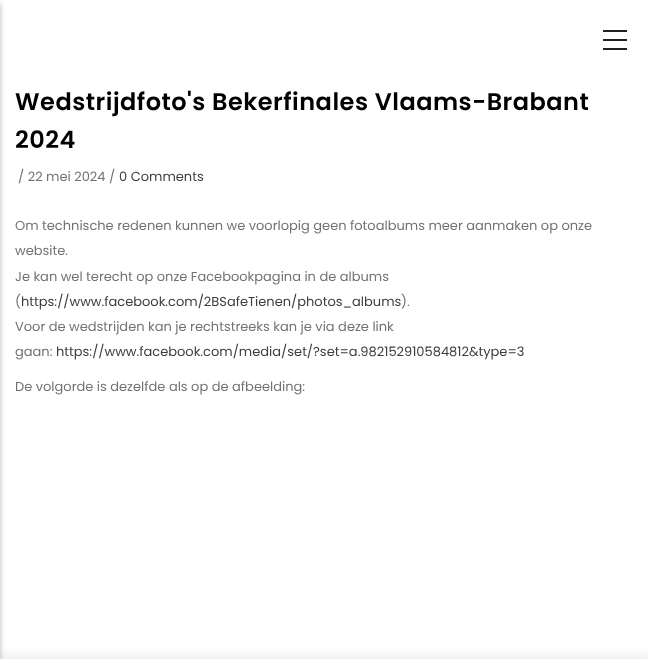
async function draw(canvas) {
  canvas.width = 648
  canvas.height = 659
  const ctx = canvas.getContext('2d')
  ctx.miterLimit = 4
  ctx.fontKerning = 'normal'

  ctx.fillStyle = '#fff'
  ctx.fillRect(0, 0, 648, 659)
  ctx.fillStyle = '#00000033'
  ctx.filter = 'blur(2px)'
  ctx.beginPath()
  ctx.rect(-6, 3, 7, 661)
  ctx.fill()
  ctx.filter = 'none'
  ctx.fillStyle = '#222'
  ctx.fillRect(603, 30, 24, 2)
  ctx.fillRect(603, 39, 24, 2)
  ctx.fillRect(603, 48, 24, 2)
  ctx.letterSpacing = '0.5px'
  ctx.font = '600 24px Poppins'
  ctx.fillStyle = '#000'
  ctx.fillText('Wedstrijdfoto\'s Bekerfinales Vlaams-Brabant', 15, 110)
  ctx.fillText('2024', 15, 148)
  ctx.letterSpacing = '0px'
  ctx.font = '13px Poppins'
  ctx.fillStyle = '#727272'
  ctx.fillText('/ 22 mei 2024', 18, 181)
  ctx.fillText('/', 109, 181)
  ctx.fillStyle = '#3d3d3d'
  ctx.fillText('0 Comments', 119, 181)
  ctx.fillStyle = '#727272'
  ctx.fillText('Om technische redenen kunnen we voorlopig geen fotoalbums meer aanmaken op onze', 15, 230)
  ctx.fillText('website.', 15, 255)
  ctx.fillText('Je kan wel terecht op onze Facebookpagina in de albums', 15, 281)
  ctx.fillText('(', 15, 306)
  ctx.fillStyle = '#3d3d3d'
  ctx.fillText('https://www.facebook.com/2BSafeTienen/photos_albums', 21, 306)
  ctx.fillStyle = '#727272'
  ctx.fillText(').', 401, 306)
  ctx.fillText('Voor de wedstrijden kan je rechtstreeks kan je via deze link', 15, 331)
  ctx.fillText('gaan:', 15, 356)
  ctx.fillStyle = '#3d3d3d'
  ctx.fillText('https://www.facebook.com/media/set/?set=a.982152910584812&type=3', 56, 356)
  ctx.fillStyle = '#727272'
  ctx.fillText('De volgorde is dezelfde als op de afbeelding:', 15, 391)
  ctx.fillStyle = '#0000001a'
  ctx.filter = 'blur(5px)'
  ctx.beginPath()
  ctx.rect(-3, 656, 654, 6)
  ctx.fill()
  ctx.filter = 'none'
}

draw(document.querySelector('canvas'))
